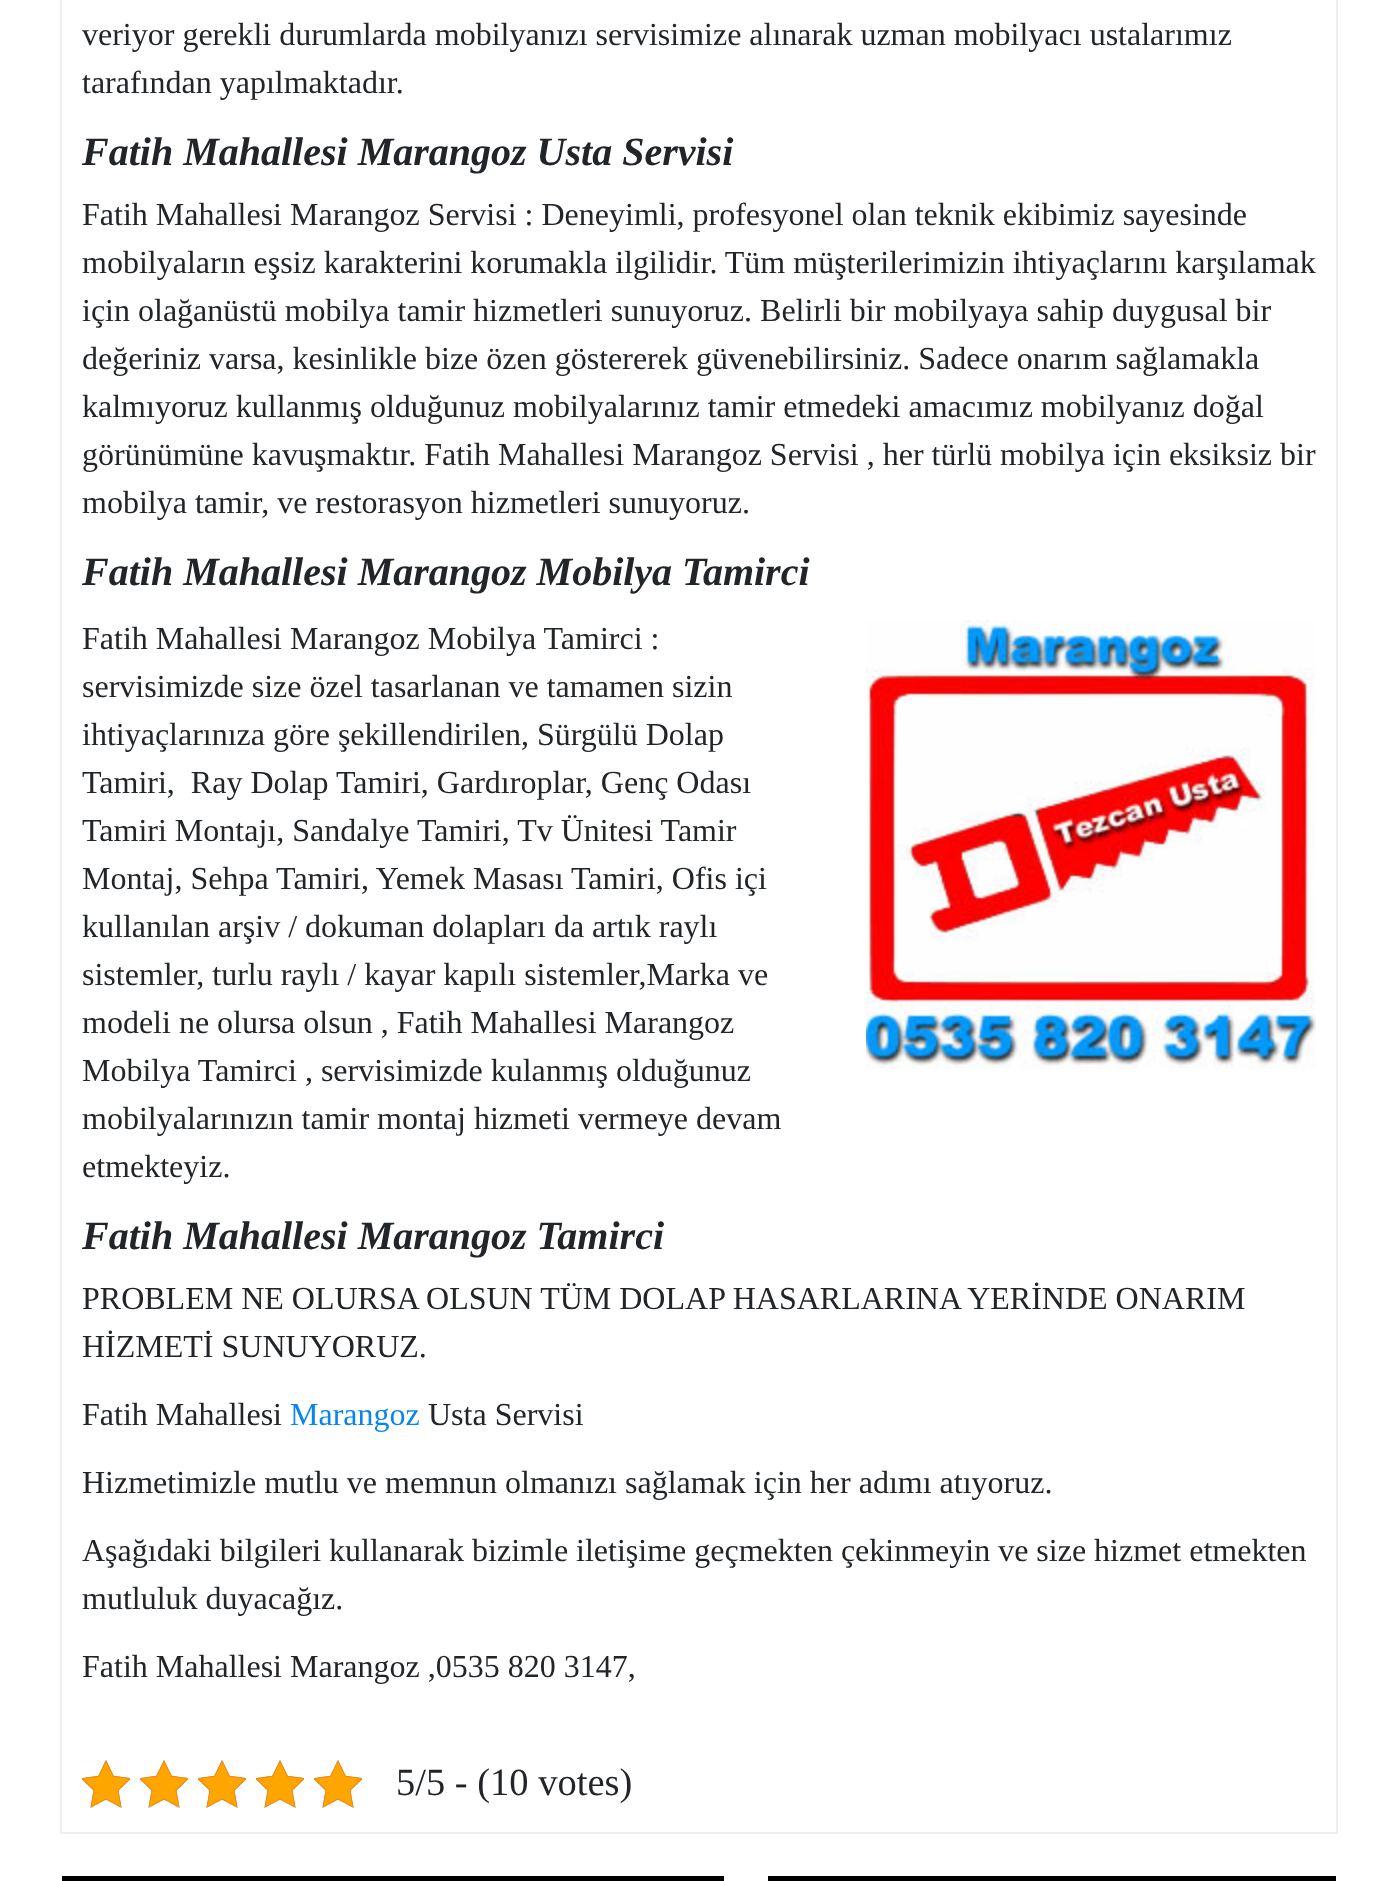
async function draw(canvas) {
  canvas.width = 1397
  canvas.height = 1881
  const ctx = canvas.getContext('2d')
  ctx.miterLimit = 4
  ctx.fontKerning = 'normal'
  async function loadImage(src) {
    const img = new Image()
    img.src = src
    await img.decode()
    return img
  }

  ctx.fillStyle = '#fff'
  ctx.fillRect(0, 0, 1397, 1881)
  ctx.strokeStyle = '#eee'
  ctx.lineWidth = 2
  ctx.strokeRect(61, -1, 1276, 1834)
  ctx.font = '32px Liberation Serif'
  ctx.fillStyle = '#212529'
  ctx.fillText('veriyor gerekli durumlarda mobilyanızı servisimize alınarak uzman mobilyacı ustalarımız', 82, 45)
  ctx.fillText('tarafından yapılmaktadır.', 82, 93)
  ctx.font = 'italic bold 40px Liberation Serif'
  ctx.fillText('Fatih Mahallesi Marangoz Usta Servisi', 82, 165)
  ctx.font = '32px Liberation Serif'
  ctx.fillText('Fatih Mahallesi Marangoz Servisi : Deneyimli, profesyonel olan teknik ekibimiz sayesinde', 82, 225)
  ctx.fillText('mobilyaların eşsiz karakterini korumakla ilgilidir. Tüm müşterilerimizin ihtiyaçlarını karşılamak', 82, 273)
  ctx.fillText('için olağanüstü mobilya tamir hizmetleri sunuyoruz. Belirli bir mobilyaya sahip duygusal bir', 82, 321)
  ctx.fillText('değeriniz varsa, kesinlikle bize özen göstererek güvenebilirsiniz. Sadece onarım sağlamakla', 82, 369)
  ctx.fillText('kalmıyoruz kullanmış olduğunuz mobilyalarınız tamir etmedeki amacımız mobilyanız doğal', 82, 417)
  ctx.fillText('görünümüne kavuşmaktır. Fatih Mahallesi Marangoz Servisi , her türlü mobilya için eksiksiz bir', 82, 465)
  ctx.fillText('mobilya tamir, ve restorasyon hizmetleri sunuyoruz.', 82, 513)
  ctx.font = 'italic bold 40px Liberation Serif'
  ctx.fillText('Fatih Mahallesi Marangoz Mobilya Tamirci', 82, 585)
  ctx.font = '32px Liberation Serif'
  ctx.fillText('Fatih Mahallesi Marangoz Mobilya Tamirci :', 82, 649)
  ctx.fillText('servisimizde size özel tasarlanan ve tamamen sizin', 82, 697)
  ctx.fillText('ihtiyaçlarınıza göre şekillendirilen, Sürgülü Dolap', 82, 745)
  ctx.fillText('Tamiri,  Ray Dolap Tamiri, Gardıroplar, Genç Odası', 82, 793)
  ctx.fillText('Tamiri Montajı, Sandalye Tamiri, Tv Ünitesi Tamir', 82, 841)
  ctx.fillText('Montaj, Sehpa Tamiri, Yemek Masası Tamiri, Ofis içi', 82, 889)
  ctx.fillText('kullanılan arşiv / dokuman dolapları da artık raylı', 82, 937)
  ctx.fillText('sistemler, turlu raylı / kayar kapılı sistemler,Marka ve', 82, 985)
  ctx.fillText('modeli ne olursa olsun , Fatih Mahallesi Marangoz', 82, 1033)
  ctx.fillText('Mobilya Tamirci , servisimizde kulanmış olduğunuz', 82, 1081)
  ctx.fillText('mobilyalarınızın tamir montaj hizmeti vermeye devam', 82, 1129)
  ctx.fillText('etmekteyiz.', 82, 1177)
  ctx.drawImage(await loadImage('image0.png'), 866, 620, 450, 449)
  ctx.font = 'italic bold 40px Liberation Serif'
  ctx.fillText('Fatih Mahallesi Marangoz Tamirci', 82, 1249)
  ctx.font = '32px Liberation Serif'
  ctx.fillText('PROBLEM NE OLURSA OLSUN TÜM DOLAP HASARLARINA YERİNDE ONARIM', 82, 1309)
  ctx.fillText('HİZMETİ SUNUYORUZ.', 82, 1357)
  ctx.fillText('Fatih Mahallesi', 82, 1425)
  ctx.fillStyle = '#0a84ef'
  ctx.fillText('Marangoz', 290, 1425)
  ctx.fillStyle = '#212529'
  ctx.fillText('Usta Servisi', 428, 1425)
  ctx.fillText('Hizmetimizle mutlu ve memnun olmanızı sağlamak için her adımı atıyoruz.', 82, 1493)
  ctx.fillText('Aşağıdaki bilgileri kullanarak bizimle iletişime geçmekten çekinmeyin ve size hizmet etmekten', 82, 1561)
  ctx.fillText('mutluluk duyacağız.', 82, 1609)
  ctx.fillText('Fatih Mahallesi Marangoz ,0535 820 3147,', 82, 1677)
  ctx.drawImage(await loadImage('image1.png'), 82, 1760, 48, 48)
  ctx.drawImage(await loadImage('image1.png'), 140, 1760, 48, 48)
  ctx.drawImage(await loadImage('image1.png'), 198, 1760, 48, 48)
  ctx.drawImage(await loadImage('image1.png'), 256, 1760, 48, 48)
  ctx.drawImage(await loadImage('image1.png'), 314, 1760, 48, 48)
  ctx.drawImage(await loadImage('image2.png'), 82, 1760, 48, 48)
  ctx.drawImage(await loadImage('image2.png'), 140, 1760, 48, 48)
  ctx.drawImage(await loadImage('image2.png'), 198, 1760, 48, 48)
  ctx.drawImage(await loadImage('image2.png'), 256, 1760, 48, 48)
  ctx.drawImage(await loadImage('image2.png'), 314, 1760, 48, 48)
  ctx.font = '38.5px Liberation Serif'
  ctx.fillText('5/5 - (10 votes)', 396, 1795)
  ctx.fillStyle = '#000'
  ctx.beginPath()
  ctx.rect(61, 1875, 664, 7)
  ctx.fill()
  ctx.strokeStyle = '#fff'
  ctx.stroke()
  ctx.beginPath()
  ctx.rect(767, 1875, 570, 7)
  ctx.fill()
  ctx.stroke()
}

draw(document.querySelector('canvas'))
